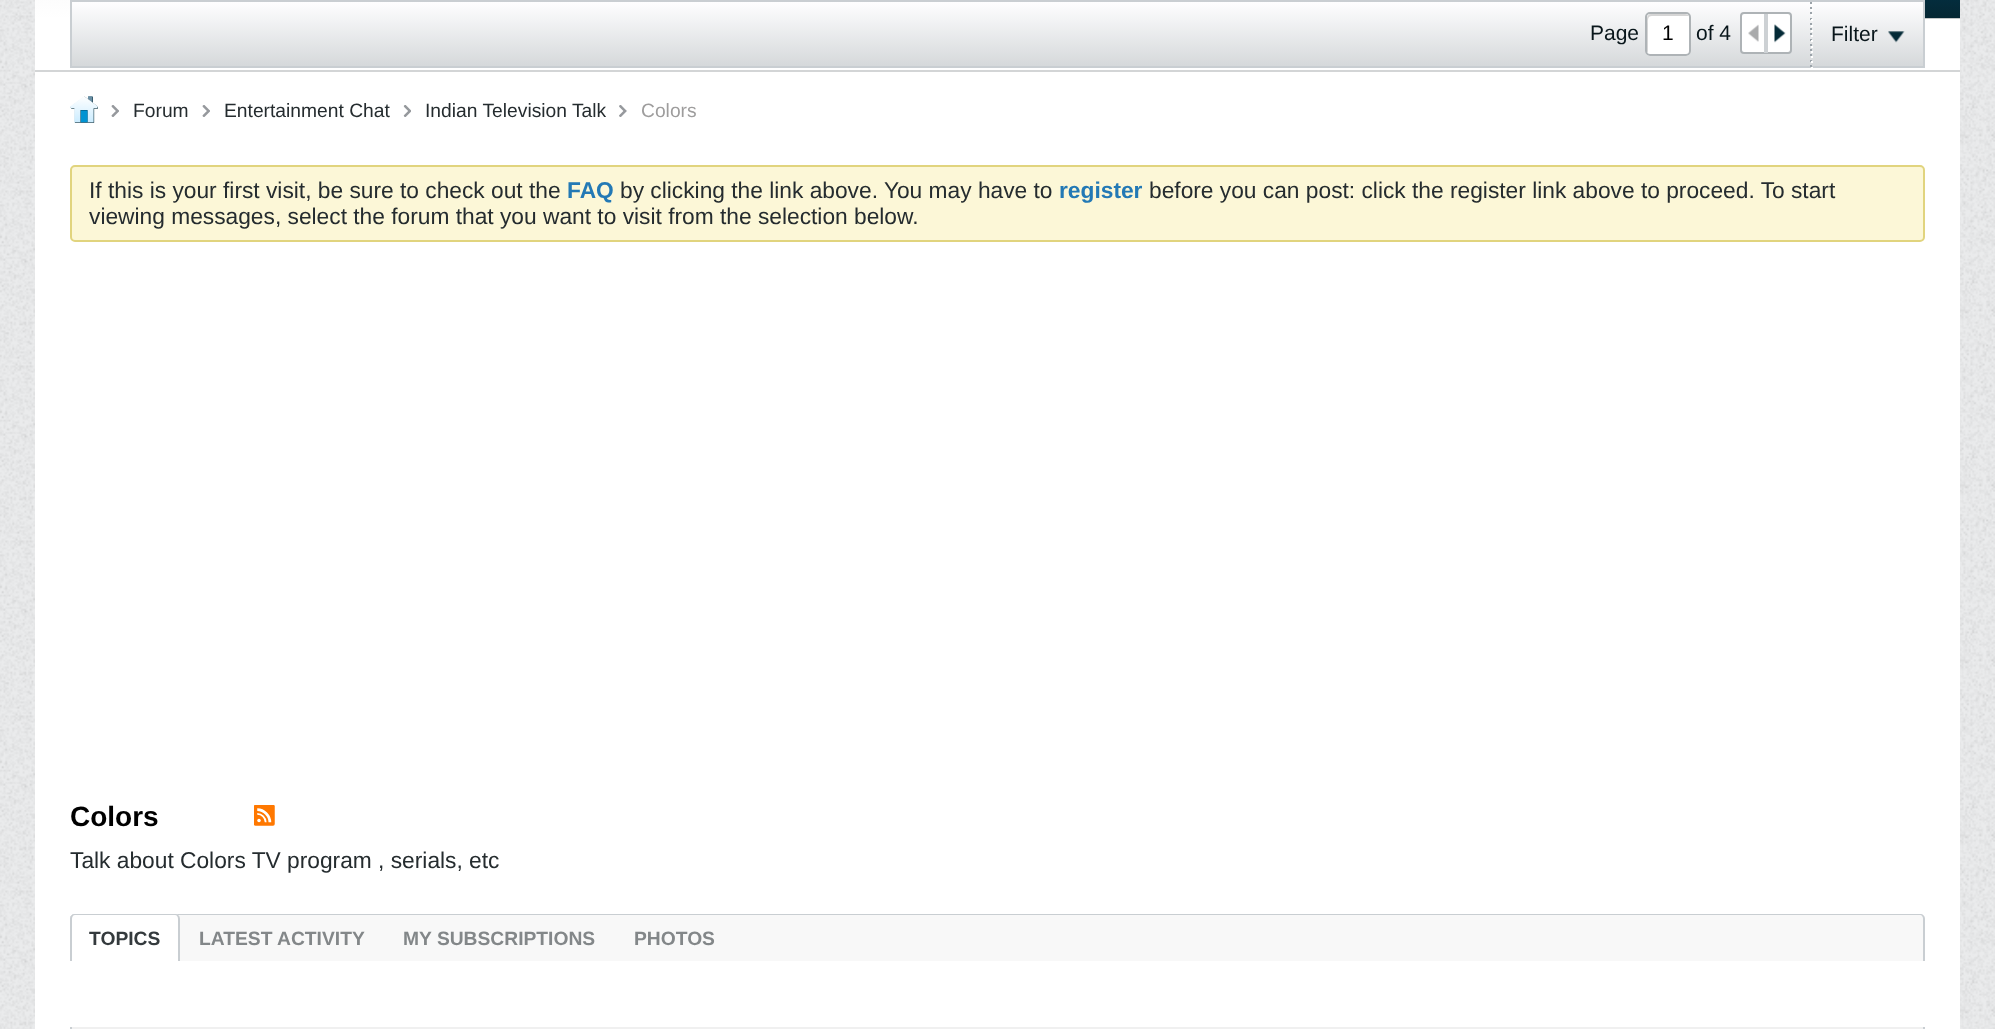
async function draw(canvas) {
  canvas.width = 1995
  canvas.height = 1029
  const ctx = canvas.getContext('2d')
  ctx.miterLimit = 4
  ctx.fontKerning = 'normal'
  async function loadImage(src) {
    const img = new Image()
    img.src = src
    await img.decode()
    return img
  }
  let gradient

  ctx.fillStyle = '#eaebec'
  ctx.fillRect(0, 0, 1995, 1029)
  ctx.drawImage(await loadImage('image0.png'), 0, 0, 1995, 1029)
  gradient = ctx.createLinearGradient(998, -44, 998, 18)
  gradient.addColorStop(0, '#013a54')
  gradient.addColorStop(1, '#052733')
  ctx.fillStyle = gradient
  ctx.fillRect(1925, 0, 35, 18)
  ctx.fillStyle = '#c4c7c8'
  ctx.fillRect(1925, 18, 35, 1)
  gradient = ctx.createLinearGradient(99, -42, 99, 19)
  gradient.addColorStop(0, '#f7f7f7')
  gradient.addColorStop(1, '#fff')
  ctx.fillStyle = gradient
  ctx.fillRect(35, 0, 35, 19)
  ctx.fillStyle = '#fff'
  ctx.fillRect(35, 19, 1925, 51)
  ctx.fillStyle = '#d3d5d6'
  ctx.fillRect(35, 70, 1925, 2)
  gradient = ctx.createLinearGradient(998, 1.7, 998, 67)
  gradient.addColorStop(0, '#fefeff')
  gradient.addColorStop(1, '#d5d8da')
  ctx.fillStyle = gradient
  ctx.fillRect(72, 2, 1851, 64)
  ctx.strokeStyle = '#c9ced2'
  ctx.lineWidth = 2
  ctx.strokeRect(71, 1, 1853, 66)
  ctx.font = '21px Liberation Sans'
  ctx.fillStyle = '#09161b'
  ctx.fillText('Page', 1590, 40)
  ctx.fillStyle = '#fff'
  ctx.beginPath()
  ctx.roundRect(1645, 12, 46, 44, 5)
  ctx.fill()
  ctx.fillStyle = '#d5d5d5'
  ctx.beginPath()
  ctx.moveTo(1652, 16)
  ctx.lineTo(1689, 16)
  ctx.bezierCurveTo(1688, 15, 1687, 14, 1685, 14)
  ctx.lineTo(1651, 14)
  ctx.bezierCurveTo(1649, 14, 1647, 16, 1647, 18)
  ctx.lineTo(1647, 50)
  ctx.bezierCurveTo(1647, 51, 1647, 52, 1648, 53)
  ctx.lineTo(1648, 24)
  ctx.bezierCurveTo(1648, 21, 1647, 16, 1652, 16)
  ctx.closePath()
  ctx.fill()
  ctx.beginPath()
  ctx.roundRect(1646, 13, 44, 42, 4)
  ctx.strokeStyle = '#aeb3b6'
  ctx.stroke()
  ctx.fillStyle = '#000'
  ctx.fillText('1', 1662, 40)
  ctx.fillStyle = '#09161b'
  ctx.fillText('of 4', 1696, 40)
  ctx.fillStyle = '#fff'
  ctx.beginPath()
  ctx.roundRect(1741, 13, 50, 40, 3)
  ctx.fill()
  ctx.stroke()
  ctx.fillStyle = '#cdd1d4'
  ctx.fillRect(1764, 14, 4, 39)
  ctx.drawImage(await loadImage('image1.png'), 1748, 24, 11, 18)
  ctx.drawImage(await loadImage('image2.png'), 1774, 24, 12, 19)
  ctx.fillStyle = '#9ba3a9'
  ctx.fillRect(1810, 2, 2, 2)
  ctx.fillRect(1810, 7, 2, 2)
  ctx.fillRect(1810, 12, 2, 2)
  ctx.fillRect(1810, 18, 2, 2)
  ctx.fillRect(1810, 23, 2, 2)
  ctx.fillRect(1810, 28, 2, 2)
  ctx.fillRect(1810, 33, 2, 2)
  ctx.fillRect(1810, 39, 2, 2)
  ctx.fillRect(1810, 44, 2, 2)
  ctx.fillRect(1810, 49, 2, 2)
  ctx.fillRect(1810, 54, 2, 2)
  ctx.fillRect(1810, 60, 2, 2)
  ctx.fillRect(1810, 65, 2, 2)
  ctx.fillStyle = '#fff'
  ctx.fillRect(1811, 4, 2, 2)
  ctx.fillRect(1811, 9, 2, 2)
  ctx.fillRect(1811, 14, 2, 2)
  ctx.fillRect(1811, 19, 2, 2)
  ctx.fillRect(1811, 25, 2, 2)
  ctx.fillRect(1811, 30, 2, 2)
  ctx.fillRect(1811, 35, 2, 2)
  ctx.fillRect(1811, 40, 2, 2)
  ctx.fillRect(1811, 46, 2, 2)
  ctx.fillRect(1811, 51, 2, 2)
  ctx.fillRect(1811, 56, 2, 2)
  ctx.fillRect(1811, 61, 2, 2)
  ctx.fillRect(1811, 67, 2, 1)
  ctx.fillStyle = '#09161b'
  ctx.fillText('Filter', 1831, 41)
  ctx.drawImage(await loadImage('image3.png'), 1888, 31, 17, 12)
  ctx.fillStyle = '#fff'
  ctx.fillRect(35, 72, 1925, 957)
  ctx.fillStyle = '#f0f0f0'
  ctx.fillRect(70, 1027, 1855, 2)
  ctx.fillStyle = '#c9ced2'
  ctx.fillRect(70, 1027, 2, 2)
  ctx.fillRect(1923, 1027, 2, 2)
  ctx.fillStyle = '#f8f8f8'
  ctx.beginPath()
  ctx.roundRect(70, 914, 1855, 47, [5, 5, 0, 0])
  ctx.fill()
  ctx.fillStyle = '#c9ced2'
  ctx.beginPath()
  ctx.moveTo(75, 914)
  ctx.lineTo(1920, 914)
  ctx.bezierCurveTo(1923, 914, 1925, 916, 1925, 919)
  ctx.lineTo(1925, 961)
  ctx.lineTo(70, 961)
  ctx.lineTo(70, 919)
  ctx.bezierCurveTo(70, 916, 72, 914, 75, 914)
  ctx.closePath()
  ctx.moveTo(75, 915)
  ctx.lineTo(1920, 915)
  ctx.bezierCurveTo(1922, 915, 1923, 917, 1923, 919)
  ctx.lineTo(1923, 961)
  ctx.lineTo(72, 961)
  ctx.lineTo(72, 919)
  ctx.bezierCurveTo(72, 917, 73, 915, 75, 915)
  ctx.closePath()
  ctx.fill('evenodd')
  ctx.fillStyle = '#f8f8f8'
  ctx.beginPath()
  ctx.roundRect(72, 915, 1851, 46, [5, 5, 0, 0])
  ctx.fill()
  ctx.fillStyle = '#fff'
  ctx.beginPath()
  ctx.roundRect(70, 914, 110, 47, [5, 5, 0, 0])
  ctx.fill()
  ctx.fillStyle = '#c9ced2'
  ctx.beginPath()
  ctx.moveTo(75, 914)
  ctx.lineTo(175, 914)
  ctx.bezierCurveTo(178, 914, 180, 916, 180, 919)
  ctx.lineTo(180, 961)
  ctx.lineTo(70, 961)
  ctx.lineTo(70, 919)
  ctx.bezierCurveTo(70, 916, 72, 914, 75, 914)
  ctx.closePath()
  ctx.moveTo(75, 915)
  ctx.lineTo(175, 915)
  ctx.bezierCurveTo(177, 915, 178, 917, 178, 919)
  ctx.lineTo(178, 961)
  ctx.lineTo(72, 961)
  ctx.lineTo(72, 919)
  ctx.bezierCurveTo(72, 917, 73, 915, 75, 915)
  ctx.closePath()
  ctx.fill('evenodd')
  ctx.font = 'bold 19.25px Liberation Sans'
  ctx.fillStyle = '#343a3d'
  ctx.fillText('TOPICS', 89, 945)
  ctx.fillStyle = '#838789'
  ctx.fillText('LATEST ACTIVITY', 199, 945)
  ctx.fillText('MY SUBSCRIPTIONS', 403, 945)
  ctx.fillText('PHOTOS', 634, 945)
  ctx.font = 'bold 28px Liberation Sans'
  ctx.fillStyle = '#000'
  ctx.fillText('Colors', 70, 826)
  ctx.drawImage(await loadImage('image4.png'), 254, 805, 21, 21)
  ctx.font = '22.75px Liberation Sans'
  ctx.fillStyle = '#252c2f'
  ctx.fillText('Talk about Colors TV program , serials, etc', 70, 868)
  ctx.drawImage(await loadImage('image5.png'), 70, 96, 28, 27)
  ctx.drawImage(await loadImage('image6.png'), 111, 105, 8, 12)
  ctx.font = '19.25px Liberation Sans'
  ctx.fillText('Forum', 133, 117)
  ctx.drawImage(await loadImage('image6.png'), 202, 105, 8, 12)
  ctx.fillText('Entertainment Chat', 224, 117)
  ctx.drawImage(await loadImage('image7.png'), 403, 105, 8, 12)
  ctx.fillText('Indian Television Talk', 425, 117)
  ctx.drawImage(await loadImage('image8.png'), 619, 105, 8, 12)
  ctx.fillStyle = '#9e9d9d'
  ctx.fillText('Colors', 641, 117)
  ctx.fillStyle = '#fcf7d7'
  ctx.beginPath()
  ctx.roundRect(71, 166, 1853, 75, 4)
  ctx.fill()
  ctx.strokeStyle = '#e1d47e'
  ctx.stroke()
  ctx.font = '22.75px Liberation Sans'
  ctx.fillStyle = '#252c2f'
  ctx.fillText('If this is your first visit, be sure to check out the', 89, 198)
  ctx.font = 'bold 22.75px Liberation Sans'
  ctx.fillStyle = '#2379b5'
  ctx.fillText('FAQ', 567, 198)
  ctx.font = '22.75px Liberation Sans'
  ctx.fillStyle = '#252c2f'
  ctx.fillText('by clicking the link above. You may have to', 620, 198)
  ctx.font = 'bold 22.75px Liberation Sans'
  ctx.fillStyle = '#2379b5'
  ctx.fillText('register', 1059, 198)
  ctx.font = '22.75px Liberation Sans'
  ctx.fillStyle = '#252c2f'
  ctx.fillText('before you can post: click the register link above to proceed. To start', 1149, 198)
  ctx.fillText('viewing messages, select the forum that you want to visit from the selection below.', 89, 224)
}

draw(document.querySelector('canvas'))
